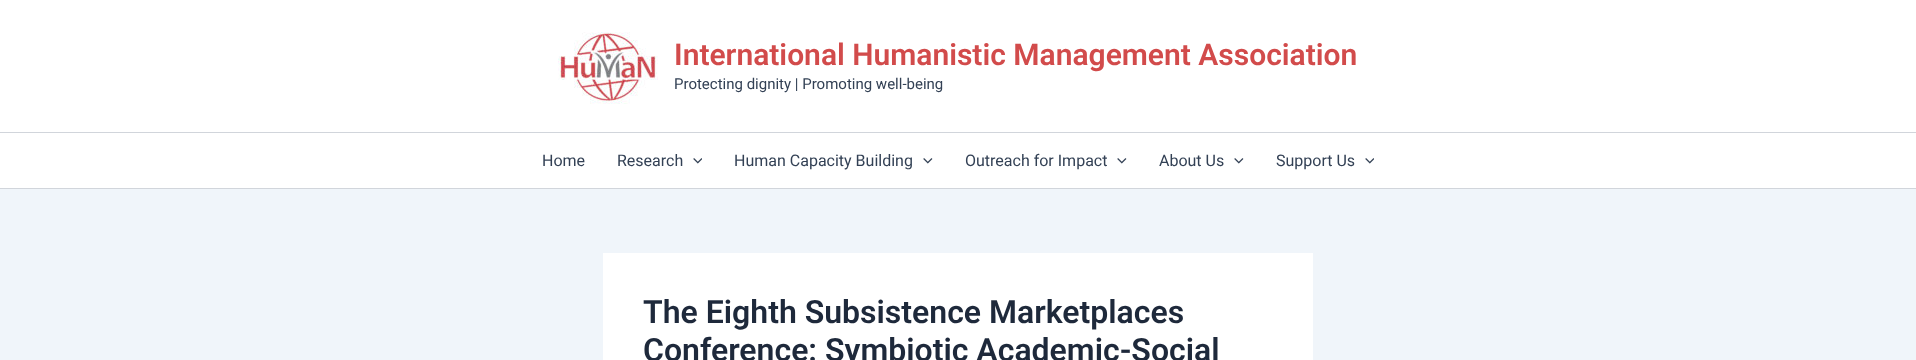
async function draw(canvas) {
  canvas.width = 1916
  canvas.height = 360
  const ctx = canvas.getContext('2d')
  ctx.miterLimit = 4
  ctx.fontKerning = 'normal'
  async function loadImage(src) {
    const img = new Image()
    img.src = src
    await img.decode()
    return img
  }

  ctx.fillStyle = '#f0f5fa'
  ctx.fillRect(0, 0, 1916, 360)
  ctx.fillStyle = '#fff'
  ctx.fillRect(0, 0, 1916, 132)
  ctx.fillStyle = '#d1d5db'
  ctx.fillRect(0, 132, 1916, 1)
  ctx.drawImage(await loadImage('image0.png'), 558, 32, 100, 72)
  ctx.font = '600 30px Roboto'
  ctx.fillStyle = '#d24b4b'
  ctx.fillText('International Humanistic Management Association', 674, 65)
  ctx.font = '15px Roboto'
  ctx.fillStyle = '#334155'
  ctx.fillText('Protecting dignity | Promoting well-being', 674, 89)
  ctx.fillStyle = '#fff'
  ctx.fillRect(0, 133, 1916, 55)
  ctx.fillStyle = '#d1d5db'
  ctx.fillRect(0, 188, 1916, 1)
  ctx.font = '16px Roboto'
  ctx.fillStyle = '#334155'
  ctx.fillText('Home', 542, 166)
  ctx.fillText('Research', 617, 166)
  ctx.drawImage(await loadImage('image1.png'), 693, 158, 9, 6)
  ctx.fillText('Human Capacity Building', 734, 166)
  ctx.drawImage(await loadImage('image2.png'), 923, 158, 10, 6)
  ctx.fillText('Outreach for Impact', 965, 166)
  ctx.drawImage(await loadImage('image2.png'), 1117, 158, 10, 6)
  ctx.fillText('About Us', 1159, 166)
  ctx.drawImage(await loadImage('image2.png'), 1234, 158, 10, 6)
  ctx.fillText('Support Us', 1276, 166)
  ctx.drawImage(await loadImage('image1.png'), 1365, 158, 9, 6)
  ctx.fillStyle = '#fff'
  ctx.fillRect(603, 253, 710, 107)
  ctx.font = '600 32px Roboto'
  ctx.fillStyle = '#1e293b'
  ctx.fillText('The Eighth Subsistence Marketplaces', 643, 323)
  ctx.fillText('Conference: Symbiotic Academic-Social', 643, 361)
}

draw(document.querySelector('canvas'))
